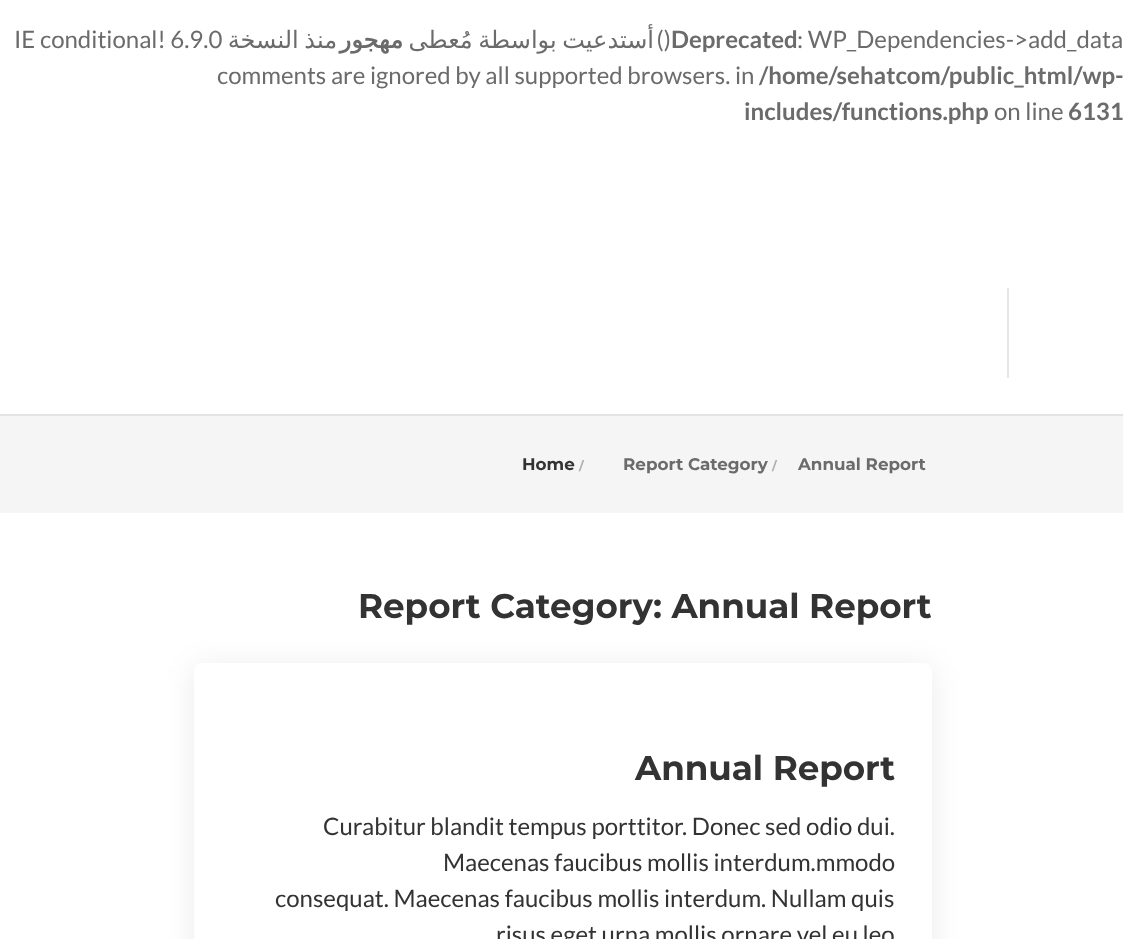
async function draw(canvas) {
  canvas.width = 1123
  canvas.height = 939
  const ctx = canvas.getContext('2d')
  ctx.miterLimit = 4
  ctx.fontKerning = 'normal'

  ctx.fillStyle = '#fff'
  ctx.fillRect(0, 0, 1123, 939)
  ctx.font = '24px Lato'
  ctx.fillStyle = '#6b6b6b'
  ctx.fillText('IE conditional! 6.9.0', 14, 48)
  ctx.wordSpacing = '-2px'
  ctx.direction = 'rtl'
  ctx.font = '24px DejaVu Sans'
  ctx.fillText('منذ النسخة', 337, 48)
  ctx.wordSpacing = '0px'
  ctx.font = 'bold 24px DejaVu Sans'
  ctx.fillText('مهجور', 403, 48)
  ctx.wordSpacing = '-2px'
  ctx.font = '24px DejaVu Sans'
  ctx.fillText('أستدعيت بواسطة مُعطى', 654, 48)
  ctx.wordSpacing = '0px'
  ctx.font = '24px Lato'
  ctx.fillText('()', 671, 48)
  ctx.direction = 'ltr'
  ctx.font = 'bold 24px Lato'
  ctx.fillText('Deprecated', 671, 48)
  ctx.font = '24px Lato'
  ctx.fillText(': WP_Dependencies->add_data', 797, 48)
  ctx.fillText('comments are ignored by all supported browsers. in', 217, 84)
  ctx.font = 'bold 24px Lato'
  ctx.fillText('/home/sehatcom/public_html/wp-', 759, 84)
  ctx.fillText('includes/functions.php', 744, 120)
  ctx.font = '24px Lato'
  ctx.fillText('on line', 994, 120)
  ctx.font = 'bold 24px Lato'
  ctx.fillText('6131', 1068, 120)
  ctx.fillStyle = '#e3e3e3'
  ctx.fillRect(0, 414, 1123, 2)
  ctx.fillStyle = '#e6e6e6'
  ctx.fillRect(1007, 288, 2, 90)
  ctx.fillStyle = '#f5f5f5'
  ctx.fillRect(0, 416, 1123, 97)
  ctx.font = 'bold 16.75px Montserrat'
  ctx.fillStyle = '#333'
  ctx.fillText('Home', 522, 470)
  ctx.font = 'bold 12px Montserrat'
  ctx.fillStyle = '#aeaeae'
  ctx.fillText('/', 579, 470)
  ctx.font = 'bold 16.75px Montserrat'
  ctx.fillStyle = '#6b6b6b'
  ctx.fillText('Report Category', 623, 470)
  ctx.font = 'bold 12px Montserrat'
  ctx.fillStyle = '#aeaeae'
  ctx.fillText('/', 772, 470)
  ctx.font = 'bold 16.75px Montserrat'
  ctx.fillStyle = '#6b6b6b'
  ctx.fillText('Annual Report', 798, 470)
  ctx.fillStyle = '#00000014'
  ctx.filter = 'blur(15px)'
  ctx.beginPath()
  ctx.roundRect(194, 666, 738, 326, 8)
  ctx.fill()
  ctx.filter = 'none'
  ctx.letterSpacing = '-0.05px'
  ctx.font = 'bold 34.2px Montserrat'
  ctx.fillStyle = '#333'
  ctx.fillText('Report Category: Annual Report', 358, 618)
  ctx.fillStyle = '#fff'
  ctx.beginPath()
  ctx.roundRect(194, 663, 738, 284, 8)
  ctx.fill()
  ctx.fillStyle = '#333'
  ctx.fillText('Annual Report', 635, 780)
  ctx.letterSpacing = '0px'
  ctx.font = '24px Lato'
  ctx.fillText('Curabitur blandit tempus porttitor. Donec sed odio dui.', 323, 835)
  ctx.fillText('Maecenas faucibus mollis interdum.mmodo', 443, 871)
  ctx.fillText('consequat. Maecenas faucibus mollis interdum. Nullam quis', 275, 907)
  ctx.fillText('risus eget urna mollis ornare vel eu leo', 496, 943)
}

draw(document.querySelector('canvas'))
